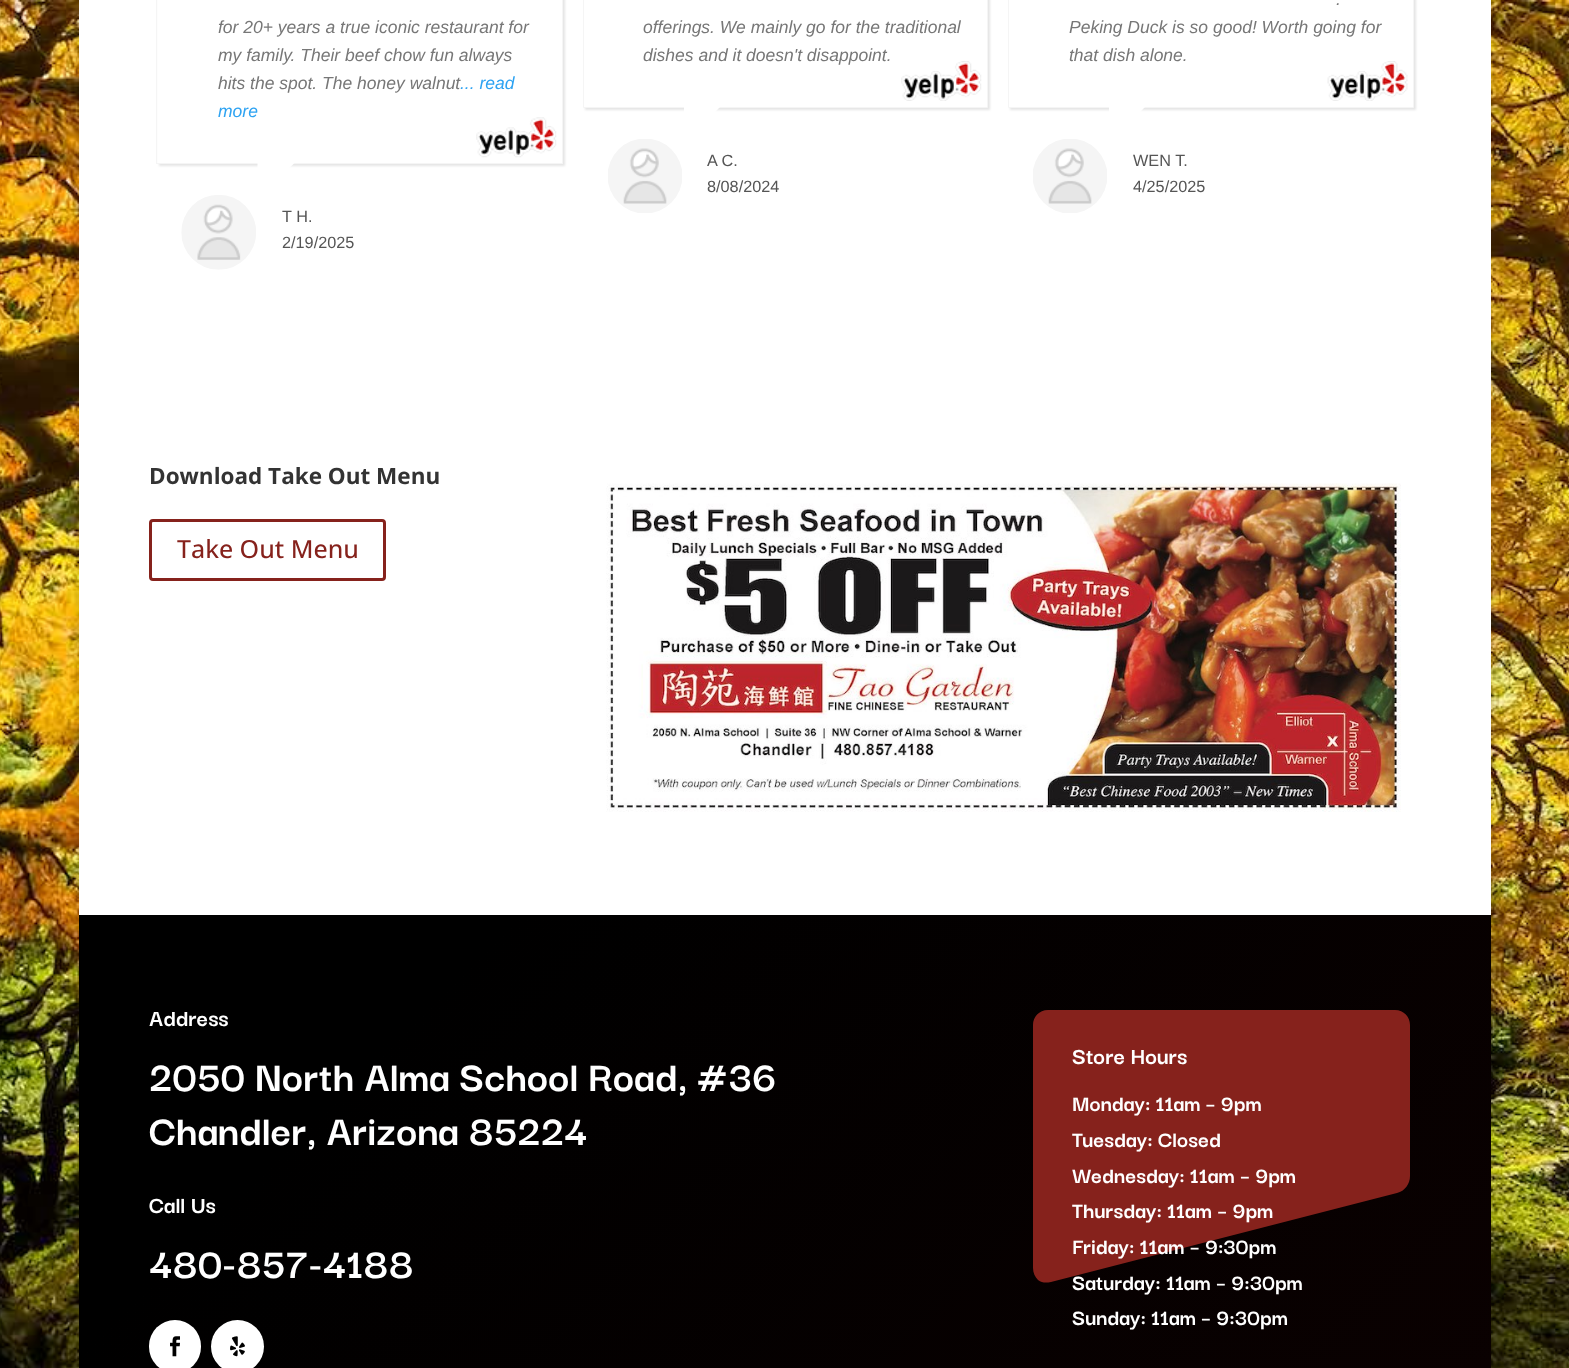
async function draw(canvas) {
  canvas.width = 1569
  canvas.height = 1368
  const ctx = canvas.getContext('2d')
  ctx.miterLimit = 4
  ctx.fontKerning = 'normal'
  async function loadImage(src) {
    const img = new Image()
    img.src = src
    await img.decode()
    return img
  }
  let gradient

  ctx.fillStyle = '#fff'
  ctx.fillRect(0, 0, 1569, 1368)
  ctx.drawImage(await loadImage('image0.png'), 0, 0, 1569, 1368)
  ctx.fillStyle = '#00000033'
  ctx.filter = 'blur(6px)'
  ctx.beginPath()
  ctx.rect(79, -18, 1412, 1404)
  ctx.fill()
  ctx.filter = 'none'
  ctx.fillStyle = '#fff'
  ctx.fillRect(79, 0, 1412, 915)
  ctx.fillStyle = '#0000001a'
  ctx.filter = 'blur(1px)'
  ctx.beginPath()
  ctx.rect(159, -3, 406, 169)
  ctx.fill()
  ctx.filter = 'none'
  ctx.fillStyle = '#fff'
  ctx.fillRect(158, 0, 404, 163)
  ctx.strokeStyle = '#f5f5f5'
  ctx.strokeRect(156.5, -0.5, 406, 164)
  ctx.font = 'italic 17.5px Liberation Sans'
  ctx.fillStyle = '#777'
  ctx.fillText('for 20+ years a true iconic restaurant for', 218, 33)
  ctx.fillText('my family. Their beef chow fun always', 218, 61)
  ctx.fillText('hits the spot. The honey walnut', 218, 89)
  ctx.fillStyle = '#2ea3f2'
  ctx.fillText('... read', 460, 89)
  ctx.fillText('more', 218, 117)
  ctx.drawImage(await loadImage('image1.png'), 476, 117, 81, 41)
  ctx.fillStyle = '#fff'
  ctx.beginPath()
  ctx.moveTo(257.5, 162.5)
  ctx.lineTo(295, 162.5)
  ctx.lineTo(257.5, 200)
  ctx.closePath()
  ctx.fill()
  ctx.drawImage(await loadImage('image2.png'), 181, 195, 75, 75)
  ctx.font = '16.25px Liberation Sans'
  ctx.fillStyle = '#555'
  ctx.fillText('T H.', 282, 222)
  ctx.fillText('2/19/2025', 282, 248)
  ctx.fillStyle = '#0000001a'
  ctx.filter = 'blur(1px)'
  ctx.beginPath()
  ctx.rect(585, -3, 405, 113)
  ctx.fill()
  ctx.filter = 'none'
  ctx.fillStyle = '#fff'
  ctx.beginPath()
  ctx.rect(583.5, -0.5, 404, 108)
  ctx.fill()
  ctx.stroke()
  ctx.font = 'italic 17.5px Liberation Sans'
  ctx.fillStyle = '#777'
  ctx.fillText('offerings. We mainly go for the traditional', 643, 33)
  ctx.fillText('dishes and it doesn\'t disappoint.', 643, 61)
  ctx.drawImage(await loadImage('image3.png'), 901, 61, 81, 40)
  ctx.fillStyle = '#fff'
  ctx.beginPath()
  ctx.moveTo(684, 106)
  ctx.lineTo(721, 106)
  ctx.lineTo(684, 144)
  ctx.closePath()
  ctx.fill()
  ctx.drawImage(await loadImage('image4.png'), 608, 139, 74, 74)
  ctx.font = '16.25px Liberation Sans'
  ctx.fillStyle = '#555'
  ctx.fillText('A C.', 707, 166)
  ctx.fillText('8/08/2024', 707, 192)
  ctx.fillStyle = '#0000001a'
  ctx.filter = 'blur(1px)'
  ctx.beginPath()
  ctx.rect(1010, -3, 406, 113)
  ctx.fill()
  ctx.filter = 'none'
  ctx.fillStyle = '#fff'
  ctx.beginPath()
  ctx.rect(1008.5, -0.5, 405, 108)
  ctx.fill()
  ctx.stroke()
  ctx.font = 'italic 17.5px Liberation Sans'
  ctx.fillStyle = '#777'
  ctx.fillText('.', 1336, 5)
  ctx.fillText('Peking Duck is so good! Worth going for', 1069, 33)
  ctx.fillText('that dish alone.', 1069, 61)
  ctx.drawImage(await loadImage('image5.png'), 1327, 61, 81, 40)
  ctx.fillStyle = '#fff'
  ctx.beginPath()
  ctx.moveTo(1109, 106)
  ctx.lineTo(1146, 106)
  ctx.lineTo(1109, 144)
  ctx.closePath()
  ctx.fill()
  ctx.drawImage(await loadImage('image6.png'), 1033, 139, 74, 74)
  ctx.font = '16.25px Liberation Sans'
  ctx.fillStyle = '#555'
  ctx.fillText('WEN T.', 1133, 166)
  ctx.fillText('4/25/2025', 1133, 192)
  ctx.font = 'bold 22.5px Open Sans'
  ctx.fillStyle = '#333'
  ctx.fillText('Download Take Out Menu', 149, 484)
  ctx.beginPath()
  ctx.roundRect(150.5, 520.5, 234, 59, 2.5)
  ctx.strokeStyle = '#86221c'
  ctx.lineWidth = 3
  ctx.stroke()
  ctx.font = '500 25px Open Sans'
  ctx.fillStyle = '#86221c'
  ctx.fillText('Take Out Menu', 177, 558)
  ctx.drawImage(await loadImage('image7.png'), 606, 483, 795, 329)
  gradient = ctx.createLinearGradient(250, 744, 1320, 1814)
  gradient.addColorStop(0.2, '#000')
  gradient.addColorStop(1, '#0c0101')
  ctx.fillStyle = gradient
  ctx.fillRect(79, 915, 1412, 453)
  ctx.font = '300 25px Darker Grotesque'
  ctx.fillStyle = '#fff'
  ctx.fillText('Address', 149, 1026)
  ctx.font = '300 45px Darker Grotesque'
  ctx.fillText('2050 North Alma School Road, #36', 149, 1091)
  ctx.fillText('Chandler, Arizona 85224', 149, 1145)
  ctx.font = '300 25px Darker Grotesque'
  ctx.fillText('Call Us', 149, 1213)
  ctx.font = '300 45px Darker Grotesque'
  ctx.fillText('480-857-4188', 149, 1278)
  ctx.beginPath()
  ctx.roundRect(149, 1320, 52, 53, 26)
  ctx.fill()
  ctx.drawImage(await loadImage('image8.png'), 170, 1336, 10, 21)
  ctx.beginPath()
  ctx.arc(237.5, 1346.5, 26.5, 0, 2 * Math.PI)
  ctx.fill()
  ctx.drawImage(await loadImage('image9.png'), 230, 1336, 15, 21)
  ctx.fillStyle = '#86221c'
  ctx.beginPath()
  ctx.moveTo(1051, 1282)
  ctx.lineTo(1397, 1193)
  ctx.bezierCurveTo(1405, 1191, 1410, 1184, 1410, 1176)
  ctx.lineTo(1410, 1025)
  ctx.bezierCurveTo(1410, 1017, 1404, 1010, 1395, 1010)
  ctx.lineTo(1048, 1010)
  ctx.bezierCurveTo(1039, 1010, 1033, 1017, 1033, 1025)
  ctx.lineTo(1033, 1268)
  ctx.bezierCurveTo(1033, 1273, 1035, 1277, 1038, 1280)
  ctx.bezierCurveTo(1042, 1283, 1046, 1283, 1051, 1282)
  ctx.closePath()
  ctx.fill()
  ctx.font = '300 25px Darker Grotesque'
  ctx.fillStyle = '#fff'
  ctx.fillText('Store Hours', 1072, 1064)
  ctx.font = '300 23.75px Darker Grotesque'
  ctx.fillText('Monday: 11am – 9pm', 1072, 1111)
  ctx.fillText('Tuesday: Closed', 1072, 1147)
  ctx.fillText('Wednesday: 11am – 9pm', 1072, 1183)
  ctx.fillText('Thursday: 11am – 9pm', 1072, 1218)
  ctx.fillText('Friday: 11am – 9:30pm', 1072, 1254)
  ctx.fillText('Saturday: 11am – 9:30pm', 1072, 1290)
  ctx.fillText('Sunday: 11am – 9:30pm', 1072, 1325)
}

draw(document.querySelector('canvas'))
